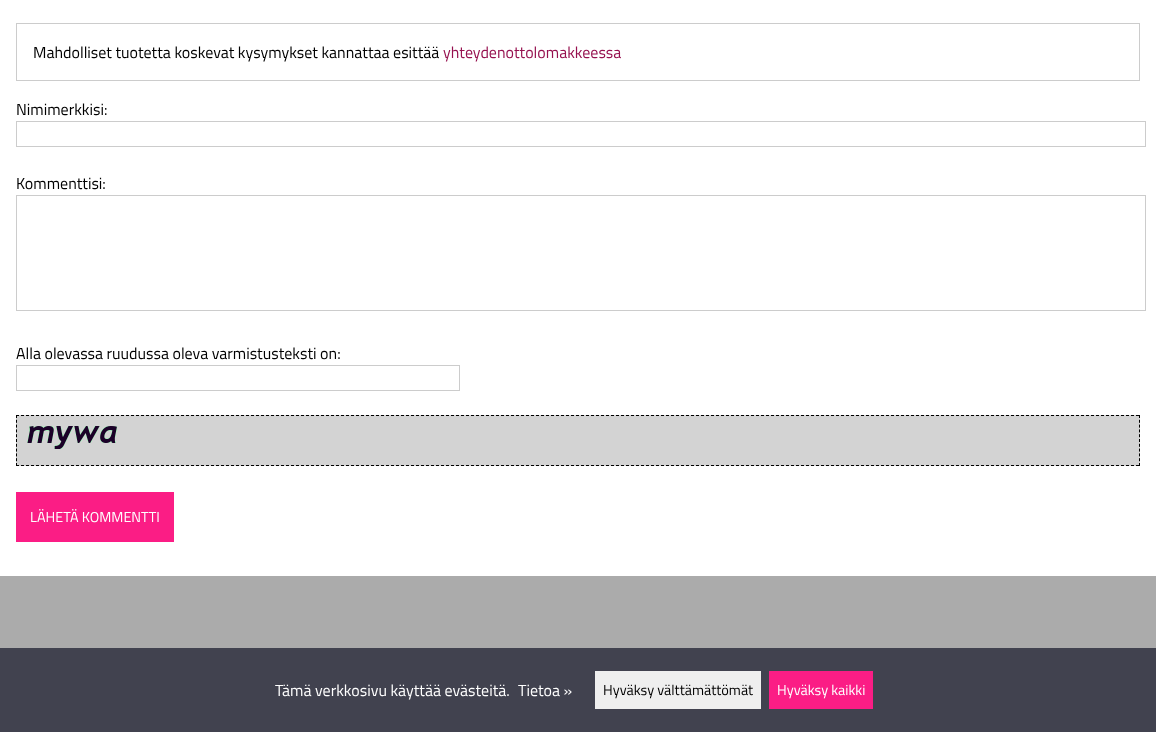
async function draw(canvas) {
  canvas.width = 1156
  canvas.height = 732
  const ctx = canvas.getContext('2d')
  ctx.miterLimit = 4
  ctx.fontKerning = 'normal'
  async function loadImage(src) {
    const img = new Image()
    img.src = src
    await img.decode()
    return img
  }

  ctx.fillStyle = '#fff'
  ctx.fillRect(0, 0, 1156, 732)
  ctx.strokeStyle = '#ccc'
  ctx.strokeRect(16.5, 23.5, 1123, 57)
  ctx.font = '16px Titillium Web'
  ctx.fillStyle = '#000'
  ctx.fillText('Mahdolliset tuotetta koskevat kysymykset kannattaa esittää', 33, 58)
  ctx.fillStyle = '#96114f'
  ctx.fillText('yhteydenottolomakkeessa', 443, 58)
  ctx.fillStyle = '#000'
  ctx.fillText('Nimimerkkisi:', 16, 115)
  ctx.strokeRect(16.5, 121.5, 1129, 25)
  ctx.fillText('Kommenttisi:', 16, 189)
  ctx.strokeRect(16.5, 195.5, 1129, 115)
  ctx.fillText('Alla olevassa ruudussa oleva varmistusteksti on:', 16, 359)
  ctx.strokeRect(16.5, 365.5, 443, 25)
  ctx.fillStyle = '#d3d3d3'
  ctx.fillRect(16, 415, 1124, 51)
  ctx.beginPath()
  ctx.moveTo(16, 415.5)
  ctx.lineTo(1140, 415.5)
  ctx.strokeStyle = '#000'
  ctx.setLineDash([3, 2])
  ctx.stroke()
  ctx.beginPath()
  ctx.moveTo(1139.5, 415)
  ctx.lineTo(1139.5, 466)
  ctx.setLineDash([3, 1.8])
  ctx.stroke()
  ctx.beginPath()
  ctx.moveTo(16, 465.5)
  ctx.lineTo(1140, 465.5)
  ctx.setLineDash([3, 2])
  ctx.stroke()
  ctx.beginPath()
  ctx.moveTo(16.5, 415)
  ctx.lineTo(16.5, 466)
  ctx.setLineDash([3, 1.8])
  ctx.stroke()
  ctx.drawImage(await loadImage('image0.png'), 27, 426, 90, 23)
  ctx.fillStyle = '#fb1d85'
  ctx.fillRect(16, 492, 158, 50)
  ctx.font = '14.4px Titillium Web'
  ctx.fillStyle = '#fff'
  ctx.fillText('LÄHETÄ KOMMENTTI', 30, 522)
  ctx.fillStyle = '#ababab'
  ctx.fillRect(0, 576, 1156, 72)
  ctx.fillStyle = '#41424f'
  ctx.fillRect(0, 648, 1156, 84)
  ctx.font = '16px Titillium Web'
  ctx.fillStyle = '#fff'
  ctx.fillText('Tämä verkkosivu käyttää evästeitä.', 275, 696)
  ctx.fillText('Tietoa »', 518, 696)
  ctx.fillStyle = '#efefef'
  ctx.fillRect(595, 671, 166, 38)
  ctx.font = '14.4px Titillium Web'
  ctx.fillStyle = '#000'
  ctx.fillText('Hyväksy välttämättömät', 603, 695)
  ctx.fillStyle = '#fb1d85'
  ctx.fillRect(769, 671, 104, 38)
  ctx.fillStyle = '#fff'
  ctx.fillText('Hyväksy kaikki', 777, 695)
}

draw(document.querySelector('canvas'))
